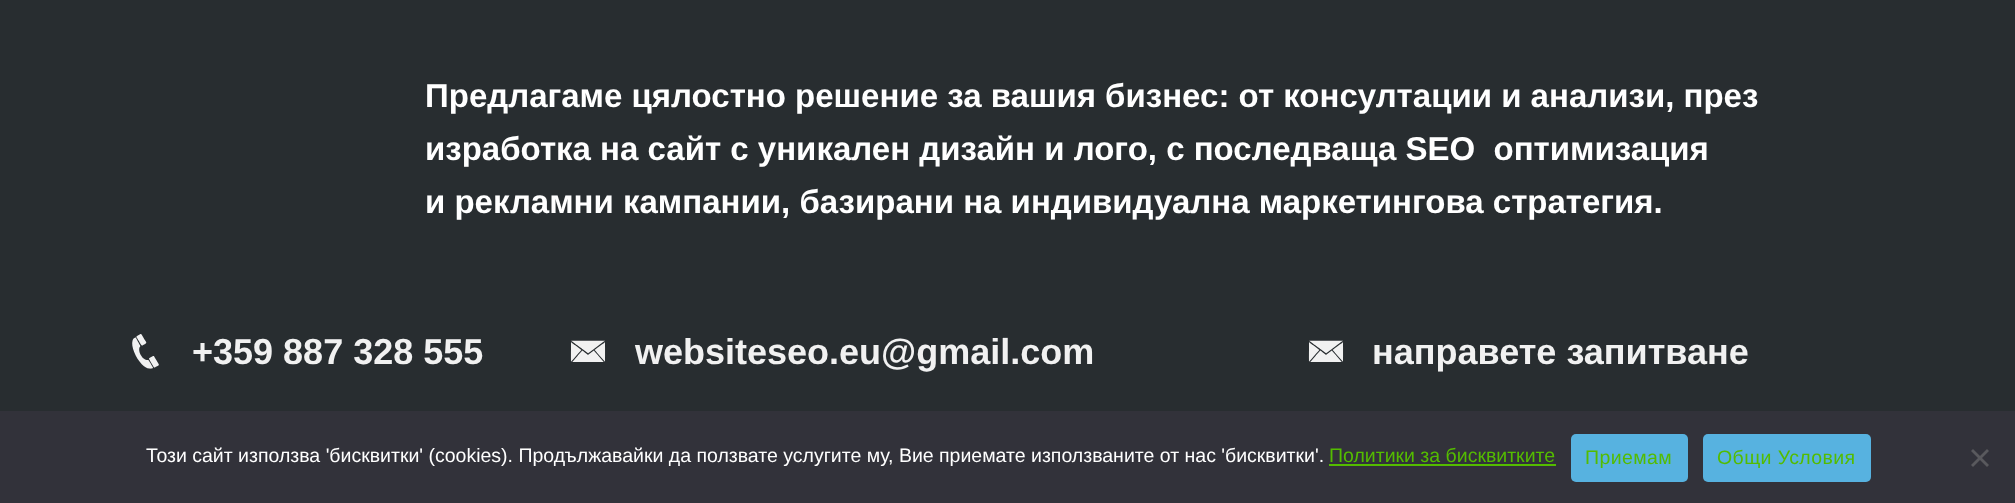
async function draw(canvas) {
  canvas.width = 2015
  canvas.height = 503
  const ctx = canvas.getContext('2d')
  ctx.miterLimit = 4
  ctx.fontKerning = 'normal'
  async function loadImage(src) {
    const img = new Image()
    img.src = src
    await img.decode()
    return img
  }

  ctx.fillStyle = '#282d30'
  ctx.fillRect(0, 0, 2015, 503)
  ctx.font = 'bold 33px Liberation Sans'
  ctx.fillStyle = '#fff'
  ctx.fillText('Предлагаме цялостно решение за вашия бизнес: от консултации и анализи, през', 425, 107)
  ctx.fillText('изработка на сайт с уникален дизайн и лого, с последваща SEO  оптимизация', 425, 160)
  ctx.fillText('и рекламни кампании, базирани на индивидуална маркетингова стратегия.', 425, 213)
  ctx.drawImage(await loadImage('image0.png'), 132, 334, 27, 35)
  ctx.font = 'bold 36px Liberation Sans'
  ctx.fillStyle = '#f1f1f1'
  ctx.fillText('+359 887 328 555', 192, 364)
  ctx.drawImage(await loadImage('image1.png'), 570, 340, 36, 22)
  ctx.fillText('websiteseo.eu@gmail.com', 635, 364)
  ctx.drawImage(await loadImage('image1.png'), 1308, 340, 36, 22)
  ctx.fillText('направете запитване', 1372, 364)
  ctx.fillStyle = '#32323a'
  ctx.fillRect(0, 411, 2015, 92)
  ctx.font = '19.5px Liberation Sans'
  ctx.fillStyle = '#fff'
  ctx.fillText('Този сайт използва \'бисквитки\' (cookies). Продължавайки да ползвате услугите му, Вие приемате използваните от нас \'бисквитки\'.', 146, 462)
  ctx.fillStyle = '#54bc00'
  ctx.fillText('Политики за бисквитките', 1329, 462)
  ctx.fillRect(1329, 464, 227, 2)
  ctx.fillStyle = '#57b2e0'
  ctx.beginPath()
  ctx.roundRect(1571, 434, 117, 48, 5)
  ctx.fill()
  ctx.letterSpacing = '0.4px'
  ctx.fillStyle = '#54bc00'
  ctx.fillText('Приемам', 1585, 464)
  ctx.fillStyle = '#57b2e0'
  ctx.beginPath()
  ctx.roundRect(1703, 434, 168, 48, 5)
  ctx.fill()
  ctx.fillStyle = '#54bc00'
  ctx.fillText('Общи Условия', 1717, 464)
  ctx.fillStyle = '#59595d'
  ctx.beginPath()
  ctx.moveTo(1987, 449)
  ctx.lineTo(1989, 451)
  ctx.lineTo(1973, 467)
  ctx.lineTo(1971, 465)
  ctx.closePath()
  ctx.fill()
  ctx.beginPath()
  ctx.moveTo(1971, 451)
  ctx.lineTo(1973, 449)
  ctx.lineTo(1989, 465)
  ctx.lineTo(1987, 467)
  ctx.closePath()
  ctx.fill()
}

draw(document.querySelector('canvas'))
